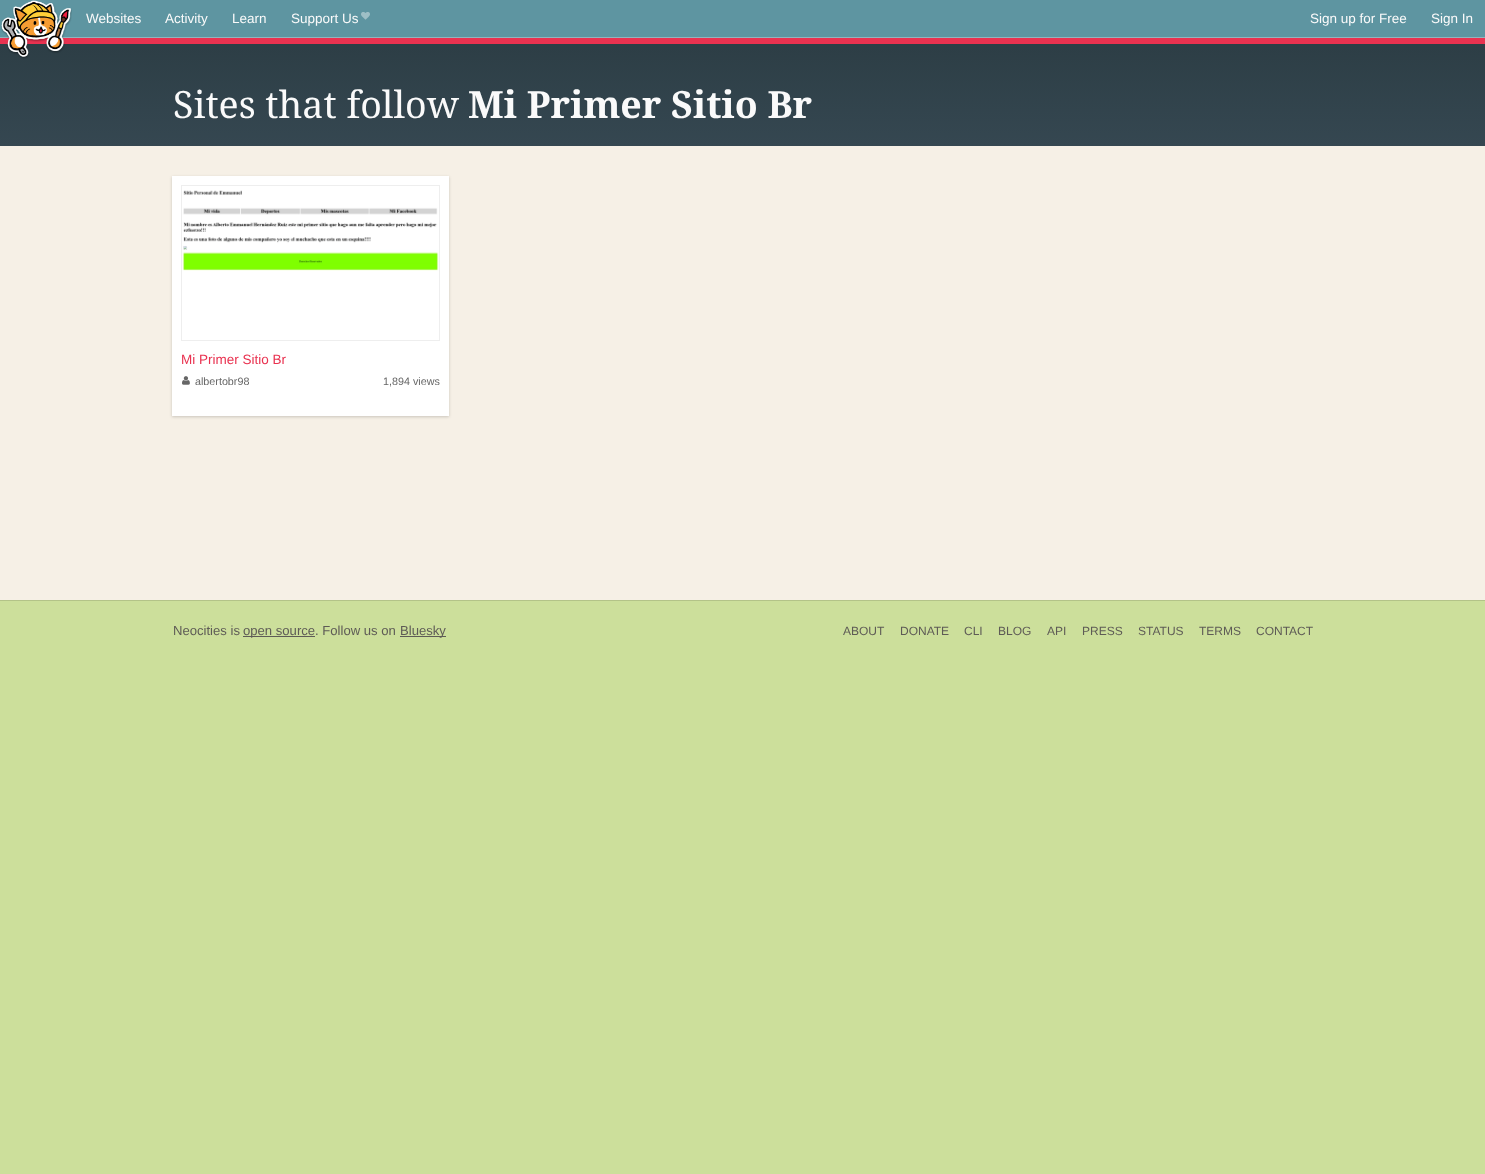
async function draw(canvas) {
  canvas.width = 1485
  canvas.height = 1174
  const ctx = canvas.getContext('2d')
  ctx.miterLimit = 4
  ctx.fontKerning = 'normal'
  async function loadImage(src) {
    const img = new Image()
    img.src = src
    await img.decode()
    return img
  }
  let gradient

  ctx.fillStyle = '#ccdf9b'
  ctx.fillRect(0, 0, 1485, 1174)
  ctx.fillStyle = '#f6f0e6'
  ctx.fillRect(0, 146, 1485, 454)
  ctx.fillStyle = '#e93250'
  ctx.fillRect(0, 38, 1485, 6)
  ctx.fillStyle = '#5e95a1'
  ctx.fillRect(0, 0, 1485, 37)
  ctx.fillStyle = '#92b4bd'
  ctx.fillRect(0, 37, 1485, 1)
  gradient = ctx.createLinearGradient(743, 22, 743, 146)
  gradient.addColorStop(0, '#2b3c43')
  gradient.addColorStop(1, '#354751')
  ctx.fillStyle = gradient
  ctx.fillRect(0, 44, 1485, 102)
  ctx.drawImage(await loadImage('image0.png'), 1, 0, 71, 59)
  ctx.font = '13.5px Liberation Sans'
  ctx.fillStyle = '#fafafa'
  ctx.fillText('Websites', 86, 23)
  ctx.fillText('Activity', 165, 23)
  ctx.fillText('Learn', 232, 23)
  ctx.fillText('Support Us', 291, 23)
  ctx.drawImage(await loadImage('image1.png'), 361, 12, 9, 8)
  ctx.fillText('Sign up for Free', 1310, 23)
  ctx.fillText('Sign In', 1431, 23)
  ctx.font = '37.5px Droid Serif'
  ctx.fillText('Sites that follow', 173, 118)
  ctx.font = 'bold 37.5px Droid Serif'
  ctx.fillText('Mi Primer Sitio Br', 468, 118)
  ctx.fillStyle = '#0000002e'
  ctx.filter = 'blur(1.5px)'
  ctx.beginPath()
  ctx.rect(172, 177, 277, 240)
  ctx.fill()
  ctx.filter = 'none'
  ctx.fillStyle = '#fff'
  ctx.fillRect(172, 176, 277, 240)
  ctx.drawImage(await loadImage('image2.png'), 182, 190, 257, 81)
  ctx.strokeStyle = '#eee'
  ctx.strokeRect(181.5, 185.5, 258, 155)
  ctx.font = '13.5px Liberation Sans'
  ctx.fillStyle = '#e93250'
  ctx.fillText('Mi Primer Sitio Br', 181, 364)
  ctx.drawImage(await loadImage('image3.png'), 182, 376, 8, 9)
  ctx.font = '10.75px Liberation Sans'
  ctx.fillStyle = '#666'
  ctx.fillText('albertobr98', 195, 385)
  ctx.fillText('1,894 views', 383, 385)
  ctx.fillStyle = '#b3c388'
  ctx.fillRect(0, 600, 1485, 1)
  ctx.font = '13.1px Liberation Sans'
  ctx.fillStyle = '#5e5b56'
  ctx.fillText('Neocities is', 173, 635)
  ctx.fillRect(243, 636, 72, 1)
  ctx.fillText('open source. Follow us on', 243, 635)
  ctx.fillRect(400, 636, 46, 1)
  ctx.fillText('Bluesky', 400, 635)
  ctx.font = '12px Liberation Sans'
  ctx.fillText('ABOUT', 843, 635)
  ctx.fillText('DONATE', 900, 635)
  ctx.fillText('CLI', 964, 635)
  ctx.fillText('BLOG', 998, 635)
  ctx.fillText('API', 1047, 635)
  ctx.fillText('PRESS', 1082, 635)
  ctx.fillText('STATUS', 1138, 635)
  ctx.fillText('TERMS', 1199, 635)
  ctx.fillText('CONTACT', 1256, 635)
}

draw(document.querySelector('canvas'))
